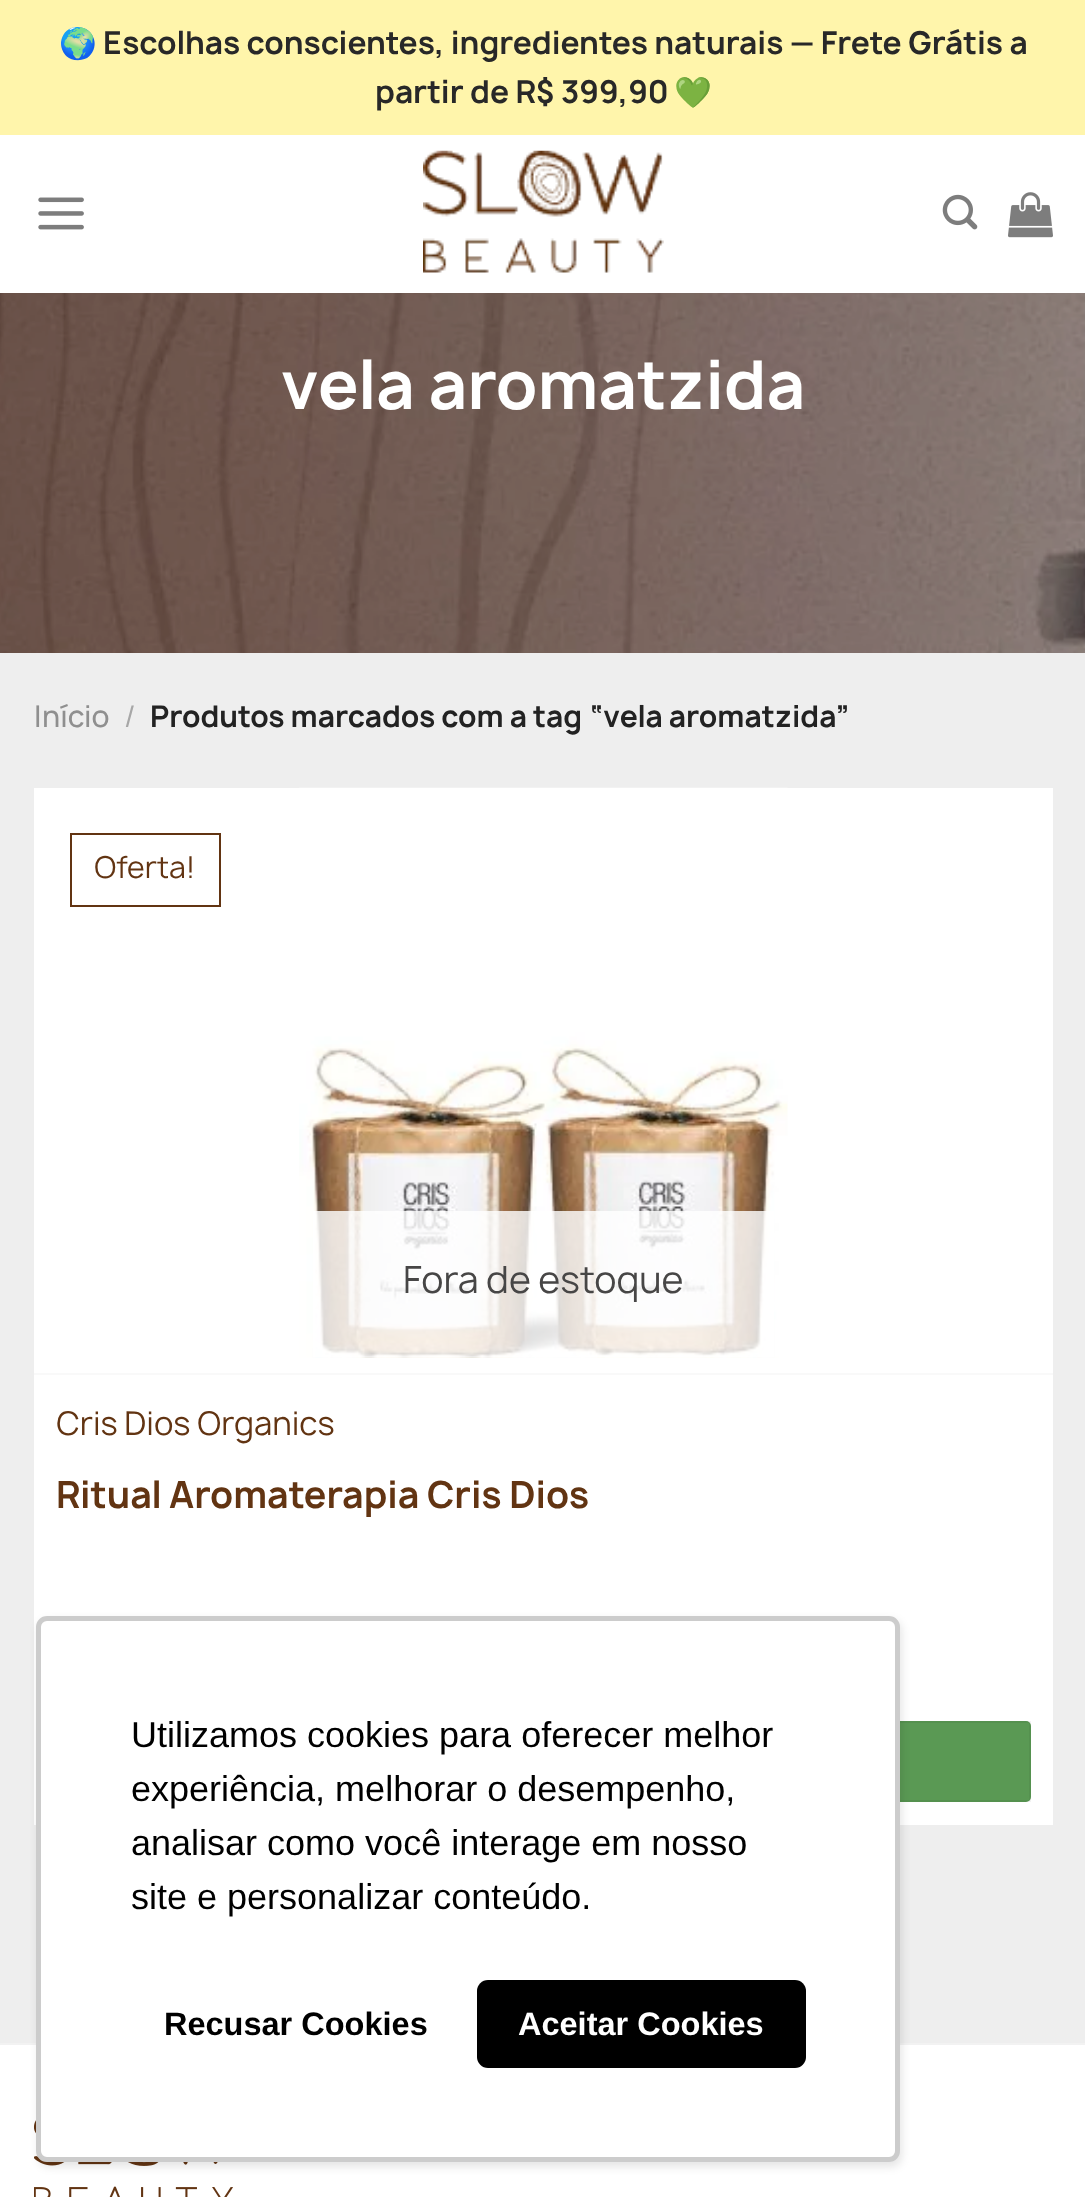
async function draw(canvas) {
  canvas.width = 1085
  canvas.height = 2197
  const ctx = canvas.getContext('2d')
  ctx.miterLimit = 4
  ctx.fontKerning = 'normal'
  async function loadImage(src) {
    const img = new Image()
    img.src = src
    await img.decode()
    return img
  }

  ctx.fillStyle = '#eee'
  ctx.fillRect(0, 0, 1085, 2197)
  ctx.fillStyle = '#fff5ab'
  ctx.fillRect(0, 0, 1085, 135)
  ctx.font = 'bold 30.4px Noto Color Emoji'
  ctx.fillStyle = '#282828'
  ctx.fillText('🌍', 59, 54)
  ctx.font = 'bold 30.4px Manrope'
  ctx.fillText('Escolhas conscientes, ingredientes naturais — Frete Grátis a', 103, 54)
  ctx.fillText('partir de R$ 399,90', 375, 103)
  ctx.font = 'bold 30.4px Noto Color Emoji'
  ctx.fillText('💚', 674, 103)
  ctx.fillStyle = '#fff'
  ctx.fillRect(0, 135, 1085, 158)
  ctx.drawImage(await loadImage('image0.png'), 38, 197, 46, 33)
  ctx.drawImage(await loadImage('image1.png'), 423, 150, 241, 123)
  ctx.drawImage(await loadImage('image2.png'), 942, 194, 36, 36)
  ctx.drawImage(await loadImage('image3.png'), 1008, 192, 45, 46)
  ctx.drawImage(await loadImage('image4.png'), 0, 293, 1085, 360)
  ctx.font = 'bold 64.75px Manrope'
  ctx.fillText('vela aromatzida', 281, 409)
  ctx.font = '500 28.8px Manrope'
  ctx.fillStyle = '#8f8f8f'
  ctx.fillText('Início', 34, 727)
  ctx.font = '28.8px Manrope'
  ctx.fillStyle = '#a7a7a7'
  ctx.fillText('/', 124, 727)
  ctx.font = 'bold 28.8px Manrope'
  ctx.fillStyle = '#222'
  ctx.fillText('Produtos marcados com a tag “vela aromatzida”', 150, 727)
  ctx.fillStyle = '#fff'
  ctx.fillRect(34, 788, 1019, 1037)
  ctx.strokeStyle = '#623412'
  ctx.lineWidth = 2
  ctx.strokeRect(71, 834, 149, 72)
  ctx.font = '29px Manrope'
  ctx.fillStyle = '#623412'
  ctx.fillText('Oferta!', 94, 878)
  ctx.fillStyle = '#f9f9f9'
  ctx.fillRect(34, 1373, 1019, 2)
  ctx.drawImage(await loadImage('image5.png'), 299, 787, 489, 571)
  ctx.fillStyle = '#ffffffcf'
  ctx.fillRect(313, 1211, 461, 146)
  ctx.font = '36px Manrope'
  ctx.fillStyle = '#474646'
  ctx.fillText('Fora de estoque', 403, 1293)
  ctx.font = '31.5px Manrope'
  ctx.fillStyle = '#623412'
  ctx.fillText('Cris Dios Organics', 56, 1435)
  ctx.font = 'bold 36px Manrope'
  ctx.fillText('Ritual Aromaterapia Cris Dios', 56, 1508)
  ctx.fillStyle = '#5a9954'
  ctx.beginPath()
  ctx.roundRect(56, 1721, 975, 81, 5)
  ctx.fill()
  ctx.strokeStyle = '#0000000d'
  ctx.strokeRect(57, 1722, 973, 79)
  ctx.fillStyle = '#fff'
  ctx.fillRect(0, 2045, 1085, 152)
  ctx.fillStyle = '#f2f2f2'
  ctx.fillRect(0, 2043, 1085, 2)
  ctx.drawImage(await loadImage('image6.png'), 34, 2120, 199, 77)
  ctx.fillStyle = '#0000001a'
  ctx.filter = 'blur(4.5px)'
  ctx.beginPath()
  ctx.roundRect(38, 1620, 864, 547, 11)
  ctx.fill()
  ctx.filter = 'none'
  ctx.fillStyle = '#fff'
  ctx.beginPath()
  ctx.roundRect(36, 1616, 864, 546, 11)
  ctx.fill()
  ctx.beginPath()
  ctx.roundRect(38.5, 1618.5, 859, 541, 8.5)
  ctx.strokeStyle = '#00000033'
  ctx.lineWidth = 5
  ctx.stroke()
  ctx.font = '36px Liberation Sans'
  ctx.fillStyle = '#000'
  ctx.fillText('Utilizamos cookies para oferecer melhor', 131, 1747)
  ctx.fillText('experiência, melhorar o desempenho,', 131, 1801)
  ctx.fillText('analisar como você interage em nosso', 131, 1855)
  ctx.fillText('site e personalizar conteúdo.', 131, 1909)
  ctx.font = 'bold 32.5px Liberation Sans'
  ctx.fillText('Recusar Cookies', 164, 2035)
  ctx.beginPath()
  ctx.roundRect(477, 1980, 329, 88, 11)
  ctx.fill()
  ctx.fillStyle = '#fff'
  ctx.fillText('Aceitar Cookies', 518, 2035)
}

draw(document.querySelector('canvas'))
